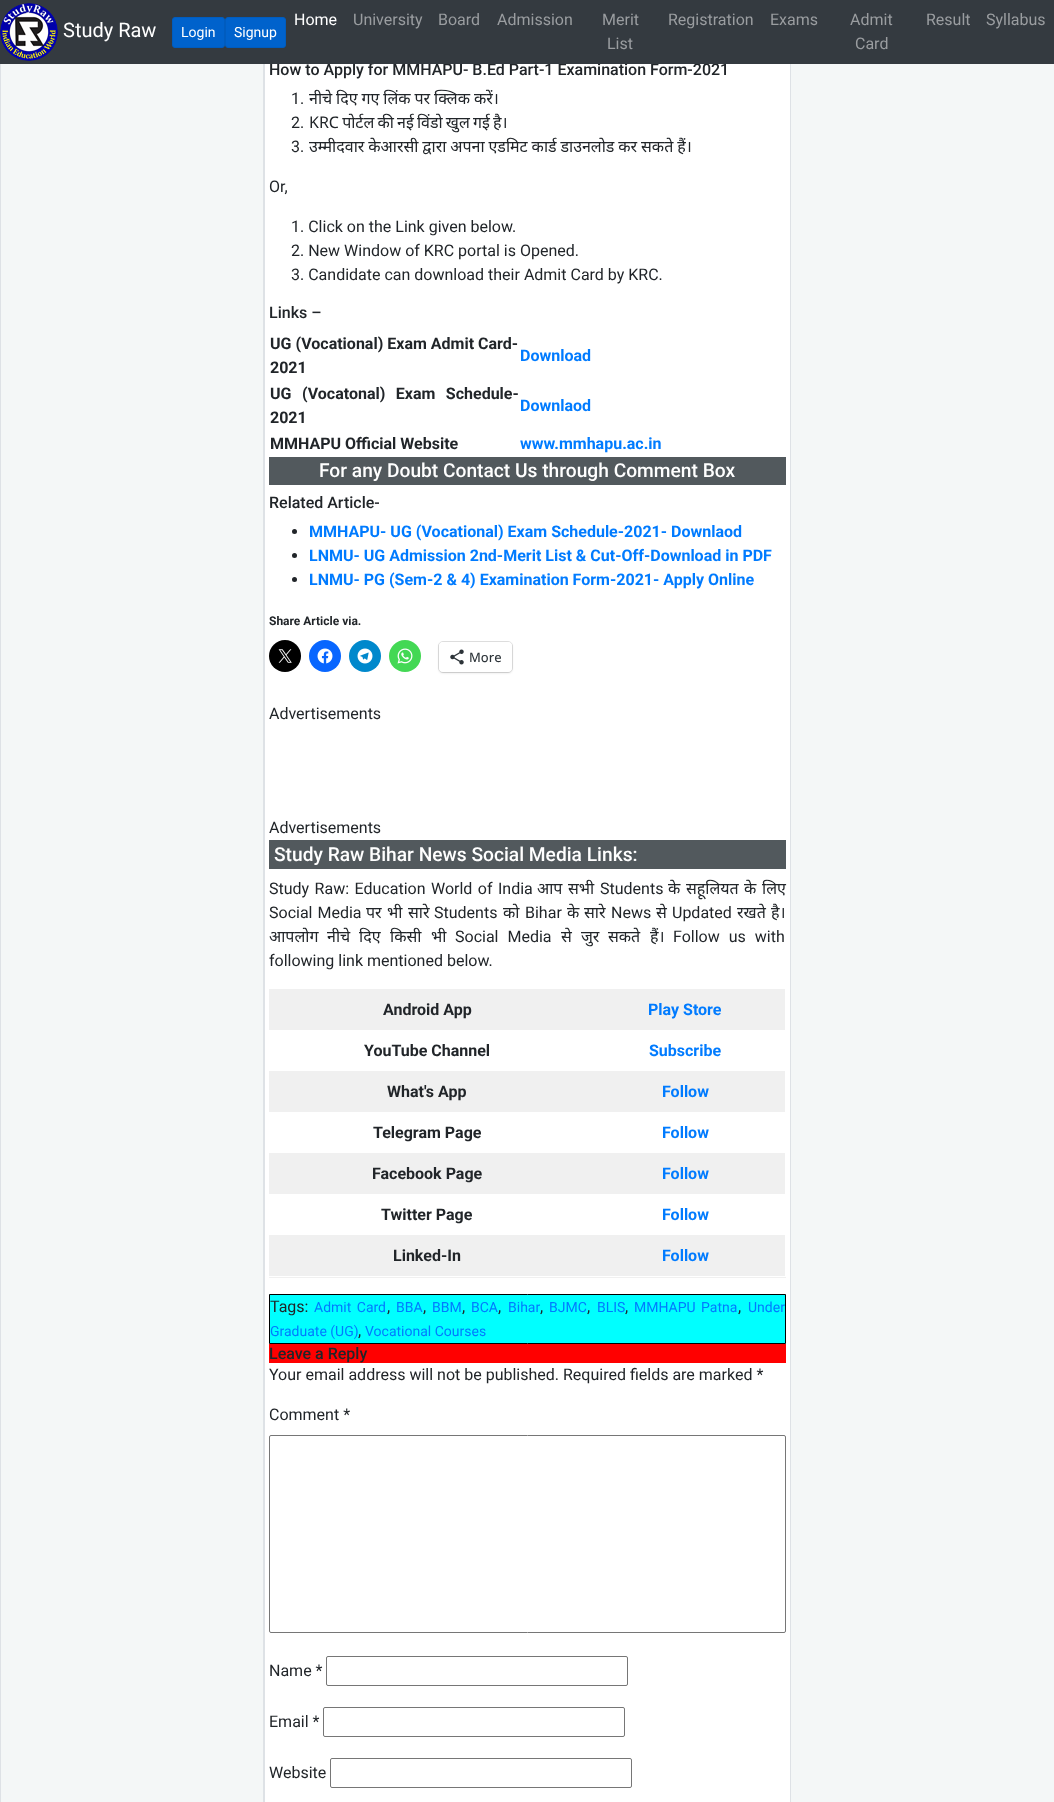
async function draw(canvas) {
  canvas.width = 1054
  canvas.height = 1802
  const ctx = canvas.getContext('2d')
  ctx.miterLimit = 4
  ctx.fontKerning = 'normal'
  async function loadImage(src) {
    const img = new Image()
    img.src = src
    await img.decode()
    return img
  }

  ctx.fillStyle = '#fff'
  ctx.fillRect(0, 0, 1054, 1802)
  ctx.fillStyle = '#f4f7f7'
  ctx.fillRect(1, 64, 262, 1738)
  ctx.strokeStyle = '#dee2e6'
  ctx.strokeRect(0.5, -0.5, 263, 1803)
  ctx.strokeRect(264.5, -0.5, 526, 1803)
  ctx.font = '500 16px Roboto'
  ctx.fillStyle = '#212529'
  ctx.fillText('How to Apply for MMHAPU- B.Ed Part-1 Examination Form-2021', 269, 75)
  ctx.fillStyle = '#343a40'
  ctx.fillRect(0, 0, 1054, 64)
  ctx.drawImage(await loadImage('image0.png'), 0, 3, 58, 58)
  ctx.font = '20px Roboto'
  ctx.fillStyle = '#fff'
  ctx.fillText('Study Raw', 63, 37)
  ctx.fillStyle = '#0062cc'
  ctx.beginPath()
  ctx.roundRect(172.5, 17.5, 52, 30, 2.5)
  ctx.fill()
  ctx.strokeStyle = '#005cbf'
  ctx.stroke()
  ctx.font = '14px Roboto'
  ctx.fillStyle = '#fff'
  ctx.fillText('Login', 181, 37)
  ctx.fillStyle = '#0062cc'
  ctx.beginPath()
  ctx.roundRect(225.5, 17.5, 60, 30, 2.5)
  ctx.fill()
  ctx.stroke()
  ctx.fillStyle = '#fff'
  ctx.fillText('Signup', 234, 37)
  ctx.font = '16px Roboto'
  ctx.fillText('Home', 294, 25)
  ctx.fillStyle = '#9a9da0'
  ctx.fillText('University', 353, 25)
  ctx.fillText('Board', 438, 25)
  ctx.fillText('Admission', 497, 25)
  ctx.fillText('Merit', 602, 25)
  ctx.fillText('List', 607, 49)
  ctx.fillText('Registration', 668, 25)
  ctx.fillText('Exams', 770, 25)
  ctx.fillText('Admit', 850, 25)
  ctx.fillText('Card', 855, 49)
  ctx.fillText('Result', 926, 25)
  ctx.fillText('Syllabus', 986, 25)
  ctx.fillStyle = '#212529'
  ctx.fillText('1.', 291, 104)
  ctx.wordSpacing = '-0.25px'
  ctx.font = '16px Noto Sans'
  ctx.fillText('नीचे दिए गए लिंक पर क्लिक करें।', 309, 104)
  ctx.wordSpacing = '0px'
  ctx.font = '16px Roboto'
  ctx.fillText('2.', 291, 128)
  ctx.wordSpacing = '-1px'
  ctx.font = '16px Noto Sans'
  ctx.fillText('KRC पोर्टल की नई विंडो खुल गई है।', 309, 128)
  ctx.wordSpacing = '0px'
  ctx.font = '16px Roboto'
  ctx.fillText('3.', 291, 152)
  ctx.wordSpacing = '-0.25px'
  ctx.font = '16px Noto Sans'
  ctx.fillText('उम्मीदवार केआरसी द्वारा अपना एडमिट कार्ड डाउनलोड कर सकते हैं।', 309, 152)
  ctx.wordSpacing = '0px'
  ctx.font = '16px Roboto'
  ctx.fillText('Or,', 269, 192)
  ctx.fillText('1. Click on the Link given below.', 291, 232)
  ctx.fillText('2. New Window of KRC portal is Opened.', 291, 256)
  ctx.fillText('3. Candidate can download their Admit Card by KRC.', 291, 280)
  ctx.font = '500 16px Roboto'
  ctx.fillText('Links –', 269, 318)
  ctx.font = 'bold 16px Roboto'
  ctx.fillText('UG (Vocational) Exam Admit Card-', 270, 349)
  ctx.fillText('2021', 270, 373)
  ctx.fillStyle = '#007bff'
  ctx.fillText('Download', 520, 361)
  ctx.wordSpacing = '6.5px'
  ctx.fillStyle = '#212529'
  ctx.fillText('UG (Vocatonal) Exam Schedule-', 270, 399)
  ctx.wordSpacing = '0px'
  ctx.fillText('2021', 270, 423)
  ctx.fillStyle = '#007bff'
  ctx.fillText('Downlaod', 520, 411)
  ctx.fillStyle = '#212529'
  ctx.fillText('MMHAPU Official Website', 270, 449)
  ctx.fillStyle = '#007bff'
  ctx.fillText('www.mmhapu.ac.in', 520, 449)
  ctx.fillStyle = '#52595d'
  ctx.fillRect(269, 457, 517, 28)
  ctx.font = '500 19.2px Roboto'
  ctx.fillStyle = '#fff'
  ctx.fillText('For any Doubt Contact Us through Comment Box', 319, 477)
  ctx.font = '500 16px Roboto'
  ctx.fillStyle = '#212529'
  ctx.fillText('Related Article-', 269, 508)
  ctx.beginPath()
  ctx.arc(294.5, 531.5, 2.5, 0, 2 * Math.PI)
  ctx.fill()
  ctx.font = 'bold 16px Roboto'
  ctx.fillStyle = '#007bff'
  ctx.fillText('MMHAPU- UG (Vocational) Exam Schedule-2021- Downlaod', 309, 537)
  ctx.fillStyle = '#212529'
  ctx.beginPath()
  ctx.arc(294.5, 555.5, 2.5, 0, 2 * Math.PI)
  ctx.fill()
  ctx.fillStyle = '#007bff'
  ctx.fillText('LNMU- UG Admission 2nd-Merit List & Cut-Off-Download in PDF', 309, 561)
  ctx.fillStyle = '#212529'
  ctx.beginPath()
  ctx.arc(294.5, 579.5, 2.5, 0, 2 * Math.PI)
  ctx.fill()
  ctx.fillStyle = '#007bff'
  ctx.fillText('LNMU- PG (Sem-2 & 4) Examination Form-2021- Apply Online', 309, 585)
  ctx.font = 'bold 12px Roboto'
  ctx.fillStyle = '#212529'
  ctx.fillText('Share Article via.', 269, 625)
  ctx.fillStyle = '#000'
  ctx.beginPath()
  ctx.arc(285, 656, 16, 0, 2 * Math.PI)
  ctx.fill()
  ctx.drawImage(await loadImage('image1.png'), 278, 649, 14, 14)
  ctx.fillStyle = '#0866ff'
  ctx.beginPath()
  ctx.arc(325, 656, 16, 0, 2 * Math.PI)
  ctx.fill()
  ctx.drawImage(await loadImage('image2.png'), 317, 648, 16, 16)
  ctx.fillStyle = '#08c'
  ctx.beginPath()
  ctx.arc(365, 656, 16, 0, 2 * Math.PI)
  ctx.fill()
  ctx.drawImage(await loadImage('image3.png'), 357, 648, 16, 16)
  ctx.fillStyle = '#43d854'
  ctx.beginPath()
  ctx.arc(405, 656, 16, 0, 2 * Math.PI)
  ctx.fill()
  ctx.drawImage(await loadImage('image4.png'), 397, 648, 16, 16)
  ctx.beginPath()
  ctx.roundRect(438.5, 641.5, 74, 31, 4.5)
  ctx.strokeStyle = '#e0e0e0'
  ctx.stroke()
  ctx.fillStyle = '#0000001f'
  ctx.filter = 'blur(1px)'
  ctx.beginPath()
  ctx.roundRect(439, 643, 73, 30, 4)
  ctx.fill()
  ctx.filter = 'none'
  ctx.fillStyle = '#fff'
  ctx.beginPath()
  ctx.roundRect(439, 642, 73, 30, 4)
  ctx.fill()
  ctx.drawImage(await loadImage('image5.png'), 450, 649, 14, 16)
  ctx.font = '500 13px Open Sans'
  ctx.fillStyle = '#2c3338'
  ctx.fillText('More', 469, 662)
  ctx.font = '16px Roboto'
  ctx.fillStyle = '#212529'
  ctx.fillText('Advertisements', 269, 719)
  ctx.fillText('Advertisements', 269, 833)
  ctx.fillStyle = '#52595d'
  ctx.fillRect(269, 840, 517, 29)
  ctx.font = '500 19.2px Roboto'
  ctx.fillStyle = '#fff'
  ctx.fillText('Study Raw Bihar News Social Media Links:', 274, 861)
  ctx.wordSpacing = '1.5px'
  ctx.font = '16px Roboto'
  ctx.fillStyle = '#212529'
  ctx.fillText('Study Raw: Education World of India', 269, 894)
  ctx.wordSpacing = '0px'
  ctx.font = '16px Noto Sans'
  ctx.fillText('आप', 537, 894)
  ctx.fillText('सभी', 568, 894)
  ctx.font = '16px Roboto'
  ctx.fillText('Students', 600, 894)
  ctx.font = '16px Noto Sans'
  ctx.fillText('के', 668, 894)
  ctx.fillText('सहूलियत', 686, 894)
  ctx.fillText('के', 744, 894)
  ctx.fillText('लिए', 762, 894)
  ctx.wordSpacing = '1px'
  ctx.font = '16px Roboto'
  ctx.fillText('Social Media', 269, 918)
  ctx.wordSpacing = '0px'
  ctx.font = '16px Noto Sans'
  ctx.fillText('पर', 366, 918)
  ctx.fillText('भी', 387, 918)
  ctx.fillText('सारे', 408, 918)
  ctx.font = '16px Roboto'
  ctx.fillText('Students', 434, 918)
  ctx.font = '16px Noto Sans'
  ctx.fillText('को', 503, 918)
  ctx.font = '16px Roboto'
  ctx.fillText('Bihar', 525, 918)
  ctx.font = '16px Noto Sans'
  ctx.fillText('के', 567, 918)
  ctx.fillText('सारे', 584, 918)
  ctx.font = '16px Roboto'
  ctx.fillText('News', 611, 918)
  ctx.font = '16px Noto Sans'
  ctx.fillText('से', 656, 918)
  ctx.font = '16px Roboto'
  ctx.fillText('Updated', 672, 918)
  ctx.font = '16px Noto Sans'
  ctx.fillText('रखते', 737, 918)
  ctx.fillText('है।', 771, 918)
  ctx.fillText('आपलोग', 269, 942)
  ctx.fillText('नीचे', 327, 942)
  ctx.fillText('दिए', 359, 942)
  ctx.fillText('किसी', 390, 942)
  ctx.fillText('भी', 431, 942)
  ctx.wordSpacing = '5px'
  ctx.font = '16px Roboto'
  ctx.fillText('Social Media', 455, 942)
  ctx.wordSpacing = '0px'
  ctx.font = '16px Noto Sans'
  ctx.fillText('से', 561, 942)
  ctx.fillText('जुर', 581, 942)
  ctx.fillText('सकते', 608, 942)
  ctx.fillText('हैं।', 650, 942)
  ctx.wordSpacing = '5px'
  ctx.font = '16px Roboto'
  ctx.fillText('Follow us with', 673, 942)
  ctx.wordSpacing = '0px'
  ctx.fillText('following link mentioned below.', 269, 966)
  ctx.fillStyle = '#f0f0f0'
  ctx.fillRect(269, 1277, 517, 1)
  ctx.fillRect(269, 989, 516, 41)
  ctx.font = 'bold 16px Roboto'
  ctx.fillStyle = '#212529'
  ctx.fillText('Android App', 383, 1015)
  ctx.fillStyle = '#007bff'
  ctx.fillText('Play Store', 648, 1015)
  ctx.fillStyle = '#212529'
  ctx.fillText('YouTube Channel', 364, 1056)
  ctx.fillStyle = '#007bff'
  ctx.fillText('Subscribe', 649, 1056)
  ctx.fillStyle = '#f0f0f0'
  ctx.fillRect(269, 1071, 516, 41)
  ctx.fillStyle = '#212529'
  ctx.fillText('What\'s App', 387, 1097)
  ctx.fillStyle = '#007bff'
  ctx.fillText('Follow', 662, 1097)
  ctx.fillStyle = '#212529'
  ctx.fillText('Telegram Page', 373, 1138)
  ctx.fillStyle = '#007bff'
  ctx.fillText('Follow', 662, 1138)
  ctx.fillStyle = '#f0f0f0'
  ctx.fillRect(269, 1153, 516, 41)
  ctx.fillStyle = '#212529'
  ctx.fillText('Facebook Page', 372, 1179)
  ctx.fillStyle = '#007bff'
  ctx.fillText('Follow', 662, 1179)
  ctx.fillStyle = '#212529'
  ctx.fillText('Twitter Page', 381, 1220)
  ctx.fillStyle = '#007bff'
  ctx.fillText('Follow', 662, 1220)
  ctx.fillStyle = '#f0f0f0'
  ctx.fillRect(269, 1235, 516, 41)
  ctx.fillStyle = '#212529'
  ctx.fillText('Linked-In', 393, 1261)
  ctx.fillStyle = '#007bff'
  ctx.fillText('Follow', 662, 1261)
  ctx.fillStyle = '#0ff'
  ctx.beginPath()
  ctx.rect(269.5, 1294.5, 516, 49)
  ctx.fill()
  ctx.strokeStyle = '#000'
  ctx.stroke()
  ctx.font = '16px Roboto'
  ctx.fillStyle = '#212529'
  ctx.fillText('Tags:', 270, 1312)
  ctx.wordSpacing = '2px'
  ctx.font = '14px Roboto'
  ctx.fillStyle = '#007bff'
  ctx.fillText('Admit Card', 314, 1312)
  ctx.wordSpacing = '0px'
  ctx.font = '16px Roboto'
  ctx.fillStyle = '#212529'
  ctx.fillText(',', 387, 1312)
  ctx.font = '14px Roboto'
  ctx.fillStyle = '#007bff'
  ctx.fillText('BBA', 396, 1312)
  ctx.font = '16px Roboto'
  ctx.fillStyle = '#212529'
  ctx.fillText(',', 423, 1312)
  ctx.font = '14px Roboto'
  ctx.fillStyle = '#007bff'
  ctx.fillText('BBM', 432, 1312)
  ctx.font = '16px Roboto'
  ctx.fillStyle = '#212529'
  ctx.fillText(',', 462, 1312)
  ctx.font = '14px Roboto'
  ctx.fillStyle = '#007bff'
  ctx.fillText('BCA', 471, 1312)
  ctx.font = '16px Roboto'
  ctx.fillStyle = '#212529'
  ctx.fillText(',', 498, 1312)
  ctx.font = '14px Roboto'
  ctx.fillStyle = '#007bff'
  ctx.fillText('Bihar', 508, 1312)
  ctx.font = '16px Roboto'
  ctx.fillStyle = '#212529'
  ctx.fillText(',', 540, 1312)
  ctx.font = '14px Roboto'
  ctx.fillStyle = '#007bff'
  ctx.fillText('BJMC', 549, 1312)
  ctx.font = '16px Roboto'
  ctx.fillStyle = '#212529'
  ctx.fillText(',', 587, 1312)
  ctx.font = '14px Roboto'
  ctx.fillStyle = '#007bff'
  ctx.fillText('BLIS', 597, 1312)
  ctx.font = '16px Roboto'
  ctx.fillStyle = '#212529'
  ctx.fillText(',', 625, 1312)
  ctx.wordSpacing = '2px'
  ctx.font = '14px Roboto'
  ctx.fillStyle = '#007bff'
  ctx.fillText('MMHAPU Patna', 634, 1312)
  ctx.wordSpacing = '0px'
  ctx.font = '16px Roboto'
  ctx.fillStyle = '#212529'
  ctx.fillText(',', 738, 1312)
  ctx.font = '14px Roboto'
  ctx.fillStyle = '#007bff'
  ctx.fillText('Under', 748, 1312)
  ctx.fillText('Graduate (UG)', 270, 1336)
  ctx.font = '16px Roboto'
  ctx.fillStyle = '#212529'
  ctx.fillText(',', 358, 1336)
  ctx.font = '14px Roboto'
  ctx.fillStyle = '#007bff'
  ctx.fillText('Vocational Courses', 365, 1336)
  ctx.fillStyle = '#f00'
  ctx.fillRect(269, 1344, 517, 19)
  ctx.font = '500 16px Roboto'
  ctx.fillStyle = '#212529'
  ctx.fillText('Leave a Reply', 269, 1359)
  ctx.font = '16px Roboto'
  ctx.fillText('Your email address will not be published. Required fields are marked *', 269, 1380)
  ctx.fillText('Comment *', 269, 1420)
  ctx.beginPath()
  ctx.roundRect(269.5, 1435.5, 516, 197, 1.5)
  ctx.strokeStyle = '#767676'
  ctx.stroke()
  ctx.fillText('Name *', 269, 1676)
  ctx.beginPath()
  ctx.roundRect(326.5, 1656.5, 301, 29, 1.5)
  ctx.stroke()
  ctx.fillText('Email *', 269, 1727)
  ctx.beginPath()
  ctx.roundRect(323.5, 1707.5, 301, 29, 1.5)
  ctx.stroke()
  ctx.fillText('Website', 269, 1778)
  ctx.beginPath()
  ctx.roundRect(330.5, 1758.5, 301, 29, 1.5)
  ctx.stroke()
  ctx.fillStyle = '#f4f7f7'
  ctx.fillRect(791, 64, 263, 1738)
}

draw(document.querySelector('canvas'))
